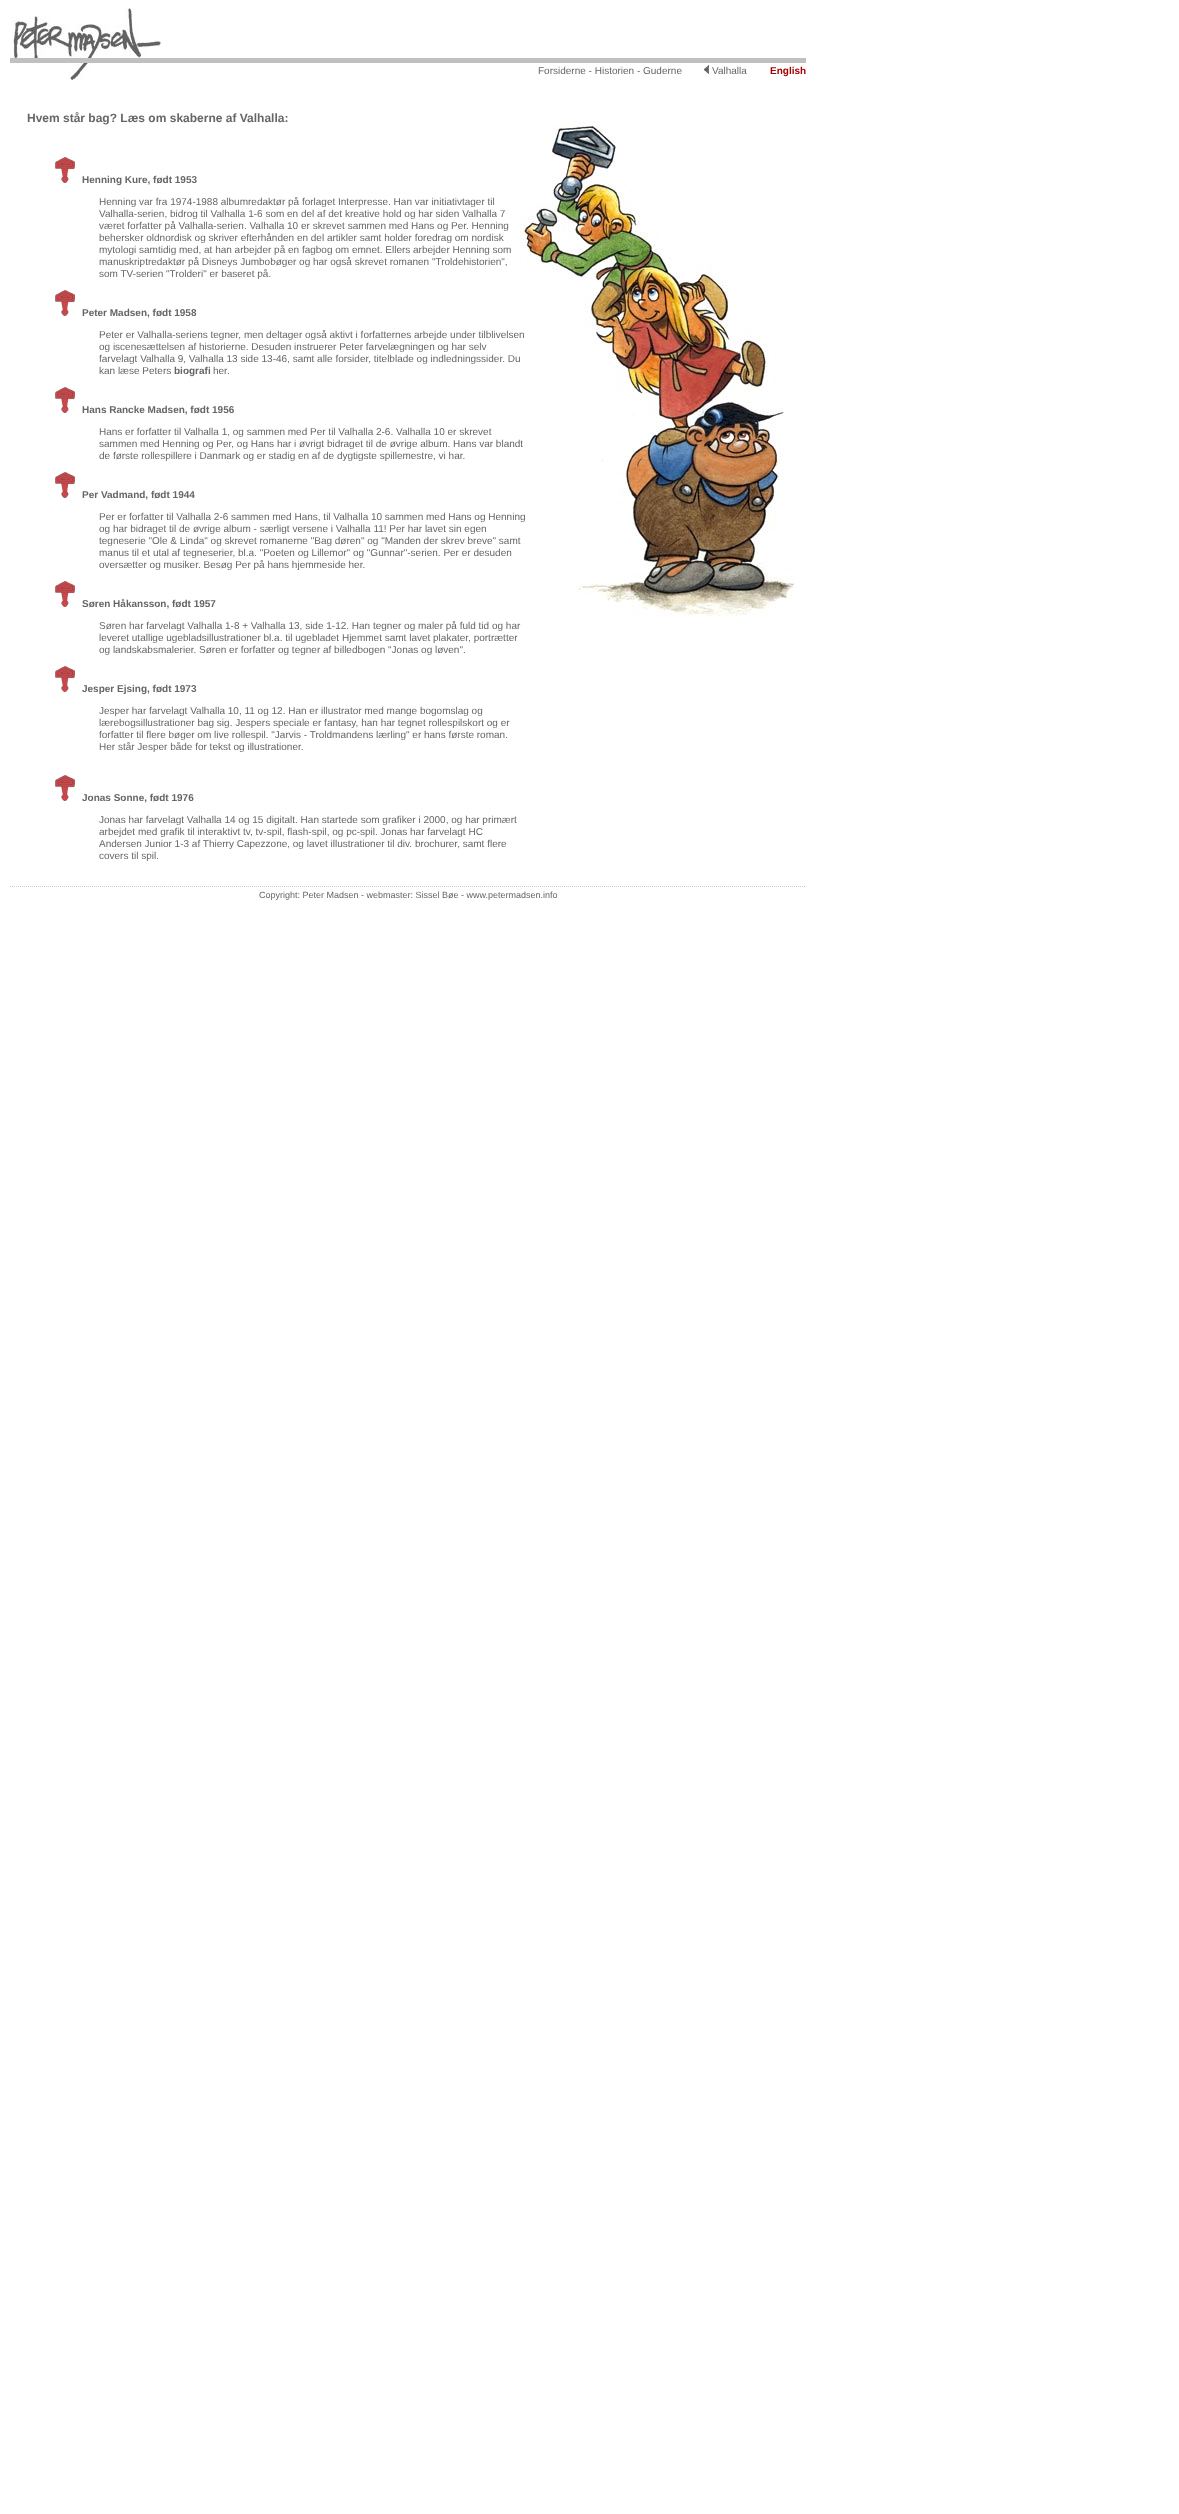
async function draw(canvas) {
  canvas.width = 1179
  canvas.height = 2514
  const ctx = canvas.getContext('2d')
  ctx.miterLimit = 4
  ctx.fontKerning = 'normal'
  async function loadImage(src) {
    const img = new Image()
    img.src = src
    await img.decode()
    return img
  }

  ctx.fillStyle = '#fff'
  ctx.fillRect(0, 0, 1179, 2514)
  ctx.drawImage(await loadImage('image0.png'), 520, 121, 277, 495)
  ctx.drawImage(await loadImage('image1.png'), 12, 8, 150, 72)
  ctx.fillStyle = '#c0c0c0'
  ctx.fillRect(10, 58, 796, 5)
  ctx.font = '10px Liberation Sans'
  ctx.fillStyle = '#666'
  ctx.fillText('Forsiderne - Historien - Guderne', 538, 74)
  ctx.drawImage(await loadImage('image2.png'), 704, 65, 5, 9)
  ctx.fillText('Valhalla', 712, 74)
  ctx.font = 'bold 10px Liberation Sans'
  ctx.fillStyle = '#a60000'
  ctx.fillText('English', 770, 74)
  ctx.font = 'bold 12px Liberation Sans'
  ctx.fillStyle = '#666'
  ctx.fillText('Hvem står bag? Læs om skaberne af Valhalla:', 27, 122)
  ctx.drawImage(await loadImage('image3.png'), 55, 157, 20, 26)
  ctx.font = 'bold 10px Liberation Sans'
  ctx.fillText('Henning Kure, født 1953', 82, 183)
  ctx.font = '10px Liberation Sans'
  ctx.fillText('Henning var fra 1974-1988 albumredaktør på forlaget Interpresse. Han var initiativtager til', 99, 205)
  ctx.fillText('Valhalla-serien, bidrog til Valhalla 1-6 som en del af det kreative hold og har siden Valhalla 7', 99, 217)
  ctx.fillText('været forfatter på Valhalla-serien. Valhalla 10 er skrevet sammen med Hans og Per. Henning', 99, 229)
  ctx.fillText('behersker oldnordisk og skriver efterhånden en del artikler samt holder foredrag om nordisk', 99, 241)
  ctx.fillText('mytologi samtidig med, at han arbejder på en fagbog om emnet. Ellers arbejder Henning som', 99, 253)
  ctx.fillText('manuskriptredaktør på Disneys Jumbobøger og har også skrevet romanen "Troldehistorien",', 99, 265)
  ctx.fillText('som TV-serien "Trolderi" er baseret på.', 99, 277)
  ctx.drawImage(await loadImage('image3.png'), 55, 290, 20, 26)
  ctx.font = 'bold 10px Liberation Sans'
  ctx.fillText('Peter Madsen, født 1958', 82, 316)
  ctx.font = '10px Liberation Sans'
  ctx.fillText('Peter er Valhalla-seriens tegner, men deltager også aktivt i forfatternes arbejde under tilblivelsen', 99, 338)
  ctx.fillText('og iscenesættelsen af historierne. Desuden instruerer Peter farvelægningen og har selv', 99, 350)
  ctx.fillText('farvelagt Valhalla 9, Valhalla 13 side 13-46, samt alle forsider, titelblade og indledningssider. Du', 99, 362)
  ctx.fillText('kan læse Peters', 99, 374)
  ctx.font = 'bold 10px Liberation Sans'
  ctx.fillText('biografi', 174, 374)
  ctx.font = '10px Liberation Sans'
  ctx.fillText('her.', 213, 374)
  ctx.drawImage(await loadImage('image3.png'), 55, 387, 20, 26)
  ctx.font = 'bold 10px Liberation Sans'
  ctx.fillText('Hans Rancke Madsen, født 1956', 82, 413)
  ctx.font = '10px Liberation Sans'
  ctx.fillText('Hans er forfatter til Valhalla 1, og sammen med Per til Valhalla 2-6. Valhalla 10 er skrevet', 99, 435)
  ctx.fillText('sammen med Henning og Per, og Hans har i øvrigt bidraget til de øvrige album. Hans var blandt', 99, 447)
  ctx.fillText('de første rollespillere i Danmark og er stadig en af de dygtigste spillemestre, vi har.', 99, 459)
  ctx.drawImage(await loadImage('image3.png'), 55, 472, 20, 26)
  ctx.font = 'bold 10px Liberation Sans'
  ctx.fillText('Per Vadmand, født 1944', 82, 498)
  ctx.font = '10px Liberation Sans'
  ctx.fillText('Per er forfatter til Valhalla 2-6 sammen med Hans, til Valhalla 10 sammen med Hans og Henning', 99, 520)
  ctx.fillText('og har bidraget til de øvrige album - særligt versene i Valhalla 11! Per har lavet sin egen', 99, 532)
  ctx.fillText('tegneserie "Ole & Linda" og skrevet romanerne "Bag døren" og "Manden der skrev breve" samt', 99, 544)
  ctx.fillText('manus til et utal af tegneserier, bl.a. "Poeten og Lillemor" og "Gunnar"-serien. Per er desuden', 99, 556)
  ctx.fillText('oversætter og musiker. Besøg Per på hans hjemmeside her.', 99, 568)
  ctx.drawImage(await loadImage('image3.png'), 55, 581, 20, 26)
  ctx.font = 'bold 10px Liberation Sans'
  ctx.fillText('Søren Håkansson, født 1957', 82, 607)
  ctx.font = '10px Liberation Sans'
  ctx.fillText('Søren har farvelagt Valhalla 1-8 + Valhalla 13, side 1-12. Han tegner og maler på fuld tid og har', 99, 629)
  ctx.fillText('leveret utallige ugebladsillustrationer bl.a. til ugebladet Hjemmet samt lavet plakater, portrætter', 99, 641)
  ctx.fillText('og landskabsmalerier. Søren er forfatter og tegner af billedbogen "Jonas og løven".', 99, 653)
  ctx.drawImage(await loadImage('image3.png'), 55, 666, 20, 26)
  ctx.font = 'bold 10px Liberation Sans'
  ctx.fillText('Jesper Ejsing, født 1973', 82, 692)
  ctx.font = '10px Liberation Sans'
  ctx.fillText('Jesper har farvelagt Valhalla 10, 11 og 12. Han er illustrator med mange bogomslag og', 99, 714)
  ctx.fillText('lærebogsillustrationer bag sig. Jespers speciale er fantasy, han har tegnet rollespilskort og er', 99, 726)
  ctx.fillText('forfatter til flere bøger om live rollespil. "Jarvis - Troldmandens lærling" er hans første roman.', 99, 738)
  ctx.fillText('Her står Jesper både for tekst og illustrationer.', 99, 750)
  ctx.drawImage(await loadImage('image3.png'), 55, 775, 20, 26)
  ctx.font = 'bold 10px Liberation Sans'
  ctx.fillText('Jonas Sonne, født 1976', 82, 801)
  ctx.font = '10px Liberation Sans'
  ctx.fillText('Jonas har farvelagt Valhalla 14 og 15 digitalt. Han startede som grafiker i 2000, og har primært', 99, 823)
  ctx.fillText('arbejdet med grafik til interaktivt tv, tv-spil, flash-spil, og pc-spil. Jonas har farvelagt HC', 99, 835)
  ctx.fillText('Andersen Junior 1-3 af Thierry Capezzone, og lavet illustrationer til div. brochurer, samt flere', 99, 847)
  ctx.fillText('covers til spil.', 99, 859)
  ctx.beginPath()
  ctx.moveTo(10, 886.5)
  ctx.lineTo(806, 886.5)
  ctx.strokeStyle = '#ccc'
  ctx.setLineDash([1, 1])
  ctx.stroke()
  ctx.font = '9px Liberation Sans'
  ctx.fillText('Copyright: Peter Madsen - webmaster: Sissel Bøe - www.petermadsen.info', 259, 898)
}

draw(document.querySelector('canvas'))
